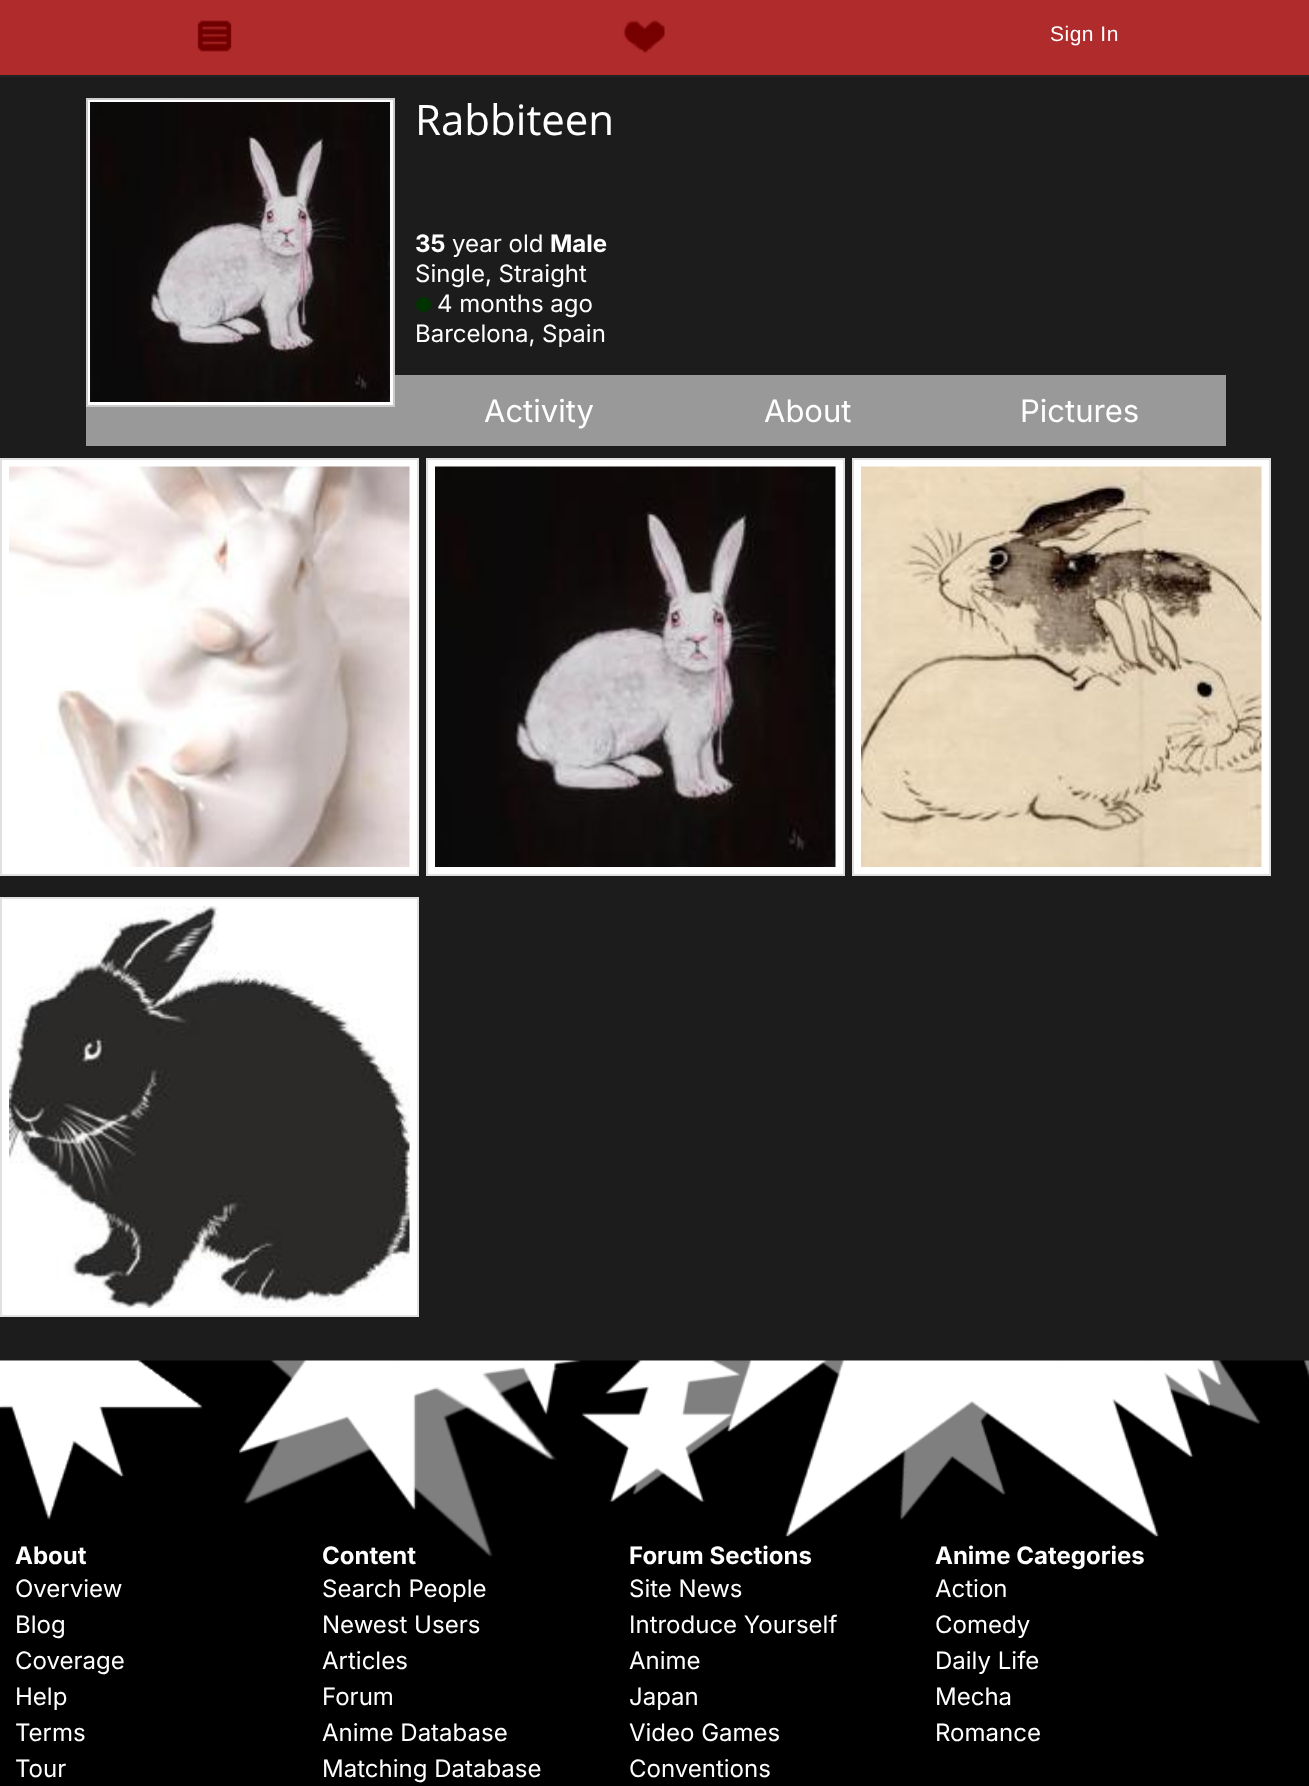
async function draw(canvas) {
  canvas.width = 1309
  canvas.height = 1786
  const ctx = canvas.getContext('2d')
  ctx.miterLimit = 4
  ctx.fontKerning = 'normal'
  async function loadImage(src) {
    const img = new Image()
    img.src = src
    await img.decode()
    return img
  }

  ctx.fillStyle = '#000'
  ctx.fillRect(0, 0, 1309, 1786)
  ctx.fillStyle = '#b02b2c'
  ctx.fillRect(0, 0, 1309, 75)
  ctx.fillStyle = '#222'
  ctx.fillRect(0, 75, 1309, 2)
  ctx.drawImage(await loadImage('image0.png'), 197, 20, 35, 32)
  ctx.drawImage(await loadImage('image1.png'), 623, 20, 42, 33)
  ctx.letterSpacing = '0.5px'
  ctx.font = '21px Liberation Sans'
  ctx.fillStyle = '#fff'
  ctx.fillText('Sign In', 1050, 41)
  ctx.fillStyle = '#1d1c1c'
  ctx.fillRect(0, 77, 1309, 1284)
  ctx.fillStyle = '#999'
  ctx.fillRect(86, 375, 1140, 71)
  ctx.fillStyle = '#fff'
  ctx.beginPath()
  ctx.rect(87, 99, 307, 307)
  ctx.fill()
  ctx.strokeStyle = '#ccc'
  ctx.lineWidth = 2
  ctx.stroke()
  ctx.drawImage(await loadImage('image2.png'), 90, 102, 300, 300)
  ctx.letterSpacing = '0px'
  ctx.font = '42px Open Sans'
  ctx.fillText('Rabbiteen', 415, 135)
  ctx.font = 'bold 24px Inter'
  ctx.fillText('35', 415, 252)
  ctx.font = '24px Inter'
  ctx.fillText('year old', 452, 252)
  ctx.font = 'bold 24px Inter'
  ctx.fillText('Male', 550, 252)
  ctx.font = '24px Inter'
  ctx.fillText('Single, Straight', 415, 282)
  ctx.fillStyle = '#030'
  ctx.beginPath()
  ctx.arc(423.5, 304.5, 7.5, 0, 2 * Math.PI)
  ctx.fill()
  ctx.fillStyle = '#fff'
  ctx.fillText('4 months ago', 437, 312)
  ctx.fillText('Barcelona, Spain', 415, 342)
  ctx.font = '31px Inter'
  ctx.fillText('Activity', 484, 422)
  ctx.fillText('About', 764, 422)
  ctx.fillText('Pictures', 1020, 422)
  ctx.beginPath()
  ctx.rect(1, 459, 417, 416)
  ctx.fill()
  ctx.strokeStyle = '#e0e0e0'
  ctx.stroke()
  ctx.drawImage(await loadImage('image3.png'), 9, 466, 401, 401)
  ctx.beginPath()
  ctx.rect(427, 459, 417, 416)
  ctx.fill()
  ctx.stroke()
  ctx.drawImage(await loadImage('image4.png'), 435, 466, 401, 401)
  ctx.beginPath()
  ctx.rect(853, 459, 417, 416)
  ctx.fill()
  ctx.stroke()
  ctx.drawImage(await loadImage('image5.png'), 861, 466, 401, 401)
  ctx.beginPath()
  ctx.rect(1, 898, 417, 418)
  ctx.fill()
  ctx.stroke()
  ctx.drawImage(await loadImage('image6.png'), 9, 906, 401, 402)
  ctx.drawImage(await loadImage('image7.png'), 0, 1360, 1309, 197)
  ctx.font = 'bold 24px Inter'
  ctx.fillText('About', 15, 1564)
  ctx.font = '24px Inter'
  ctx.fillText('Overview', 15, 1597)
  ctx.fillText('Blog', 15, 1633)
  ctx.fillText('Coverage', 15, 1669)
  ctx.fillText('Help', 15, 1705)
  ctx.fillText('Terms', 15, 1741)
  ctx.fillText('Tour', 15, 1777)
  ctx.font = 'bold 24px Inter'
  ctx.fillText('Content', 322, 1564)
  ctx.font = '24px Inter'
  ctx.fillText('Search People', 322, 1597)
  ctx.fillText('Newest Users', 322, 1633)
  ctx.fillText('Articles', 322, 1669)
  ctx.fillText('Forum', 322, 1705)
  ctx.fillText('Anime Database', 322, 1741)
  ctx.fillText('Matching Database', 322, 1777)
  ctx.font = 'bold 24px Inter'
  ctx.fillText('Forum Sections', 629, 1564)
  ctx.font = '24px Inter'
  ctx.fillText('Site News', 629, 1597)
  ctx.fillText('Introduce Yourself', 629, 1633)
  ctx.fillText('Anime', 629, 1669)
  ctx.fillText('Japan', 629, 1705)
  ctx.fillText('Video Games', 629, 1741)
  ctx.fillText('Conventions', 629, 1777)
  ctx.font = 'bold 24px Inter'
  ctx.fillText('Anime Categories', 935, 1564)
  ctx.font = '24px Inter'
  ctx.fillText('Action', 935, 1597)
  ctx.fillText('Comedy', 935, 1633)
  ctx.fillText('Daily Life', 935, 1669)
  ctx.fillText('Mecha', 935, 1705)
  ctx.fillText('Romance', 935, 1741)
}

draw(document.querySelector('canvas'))
